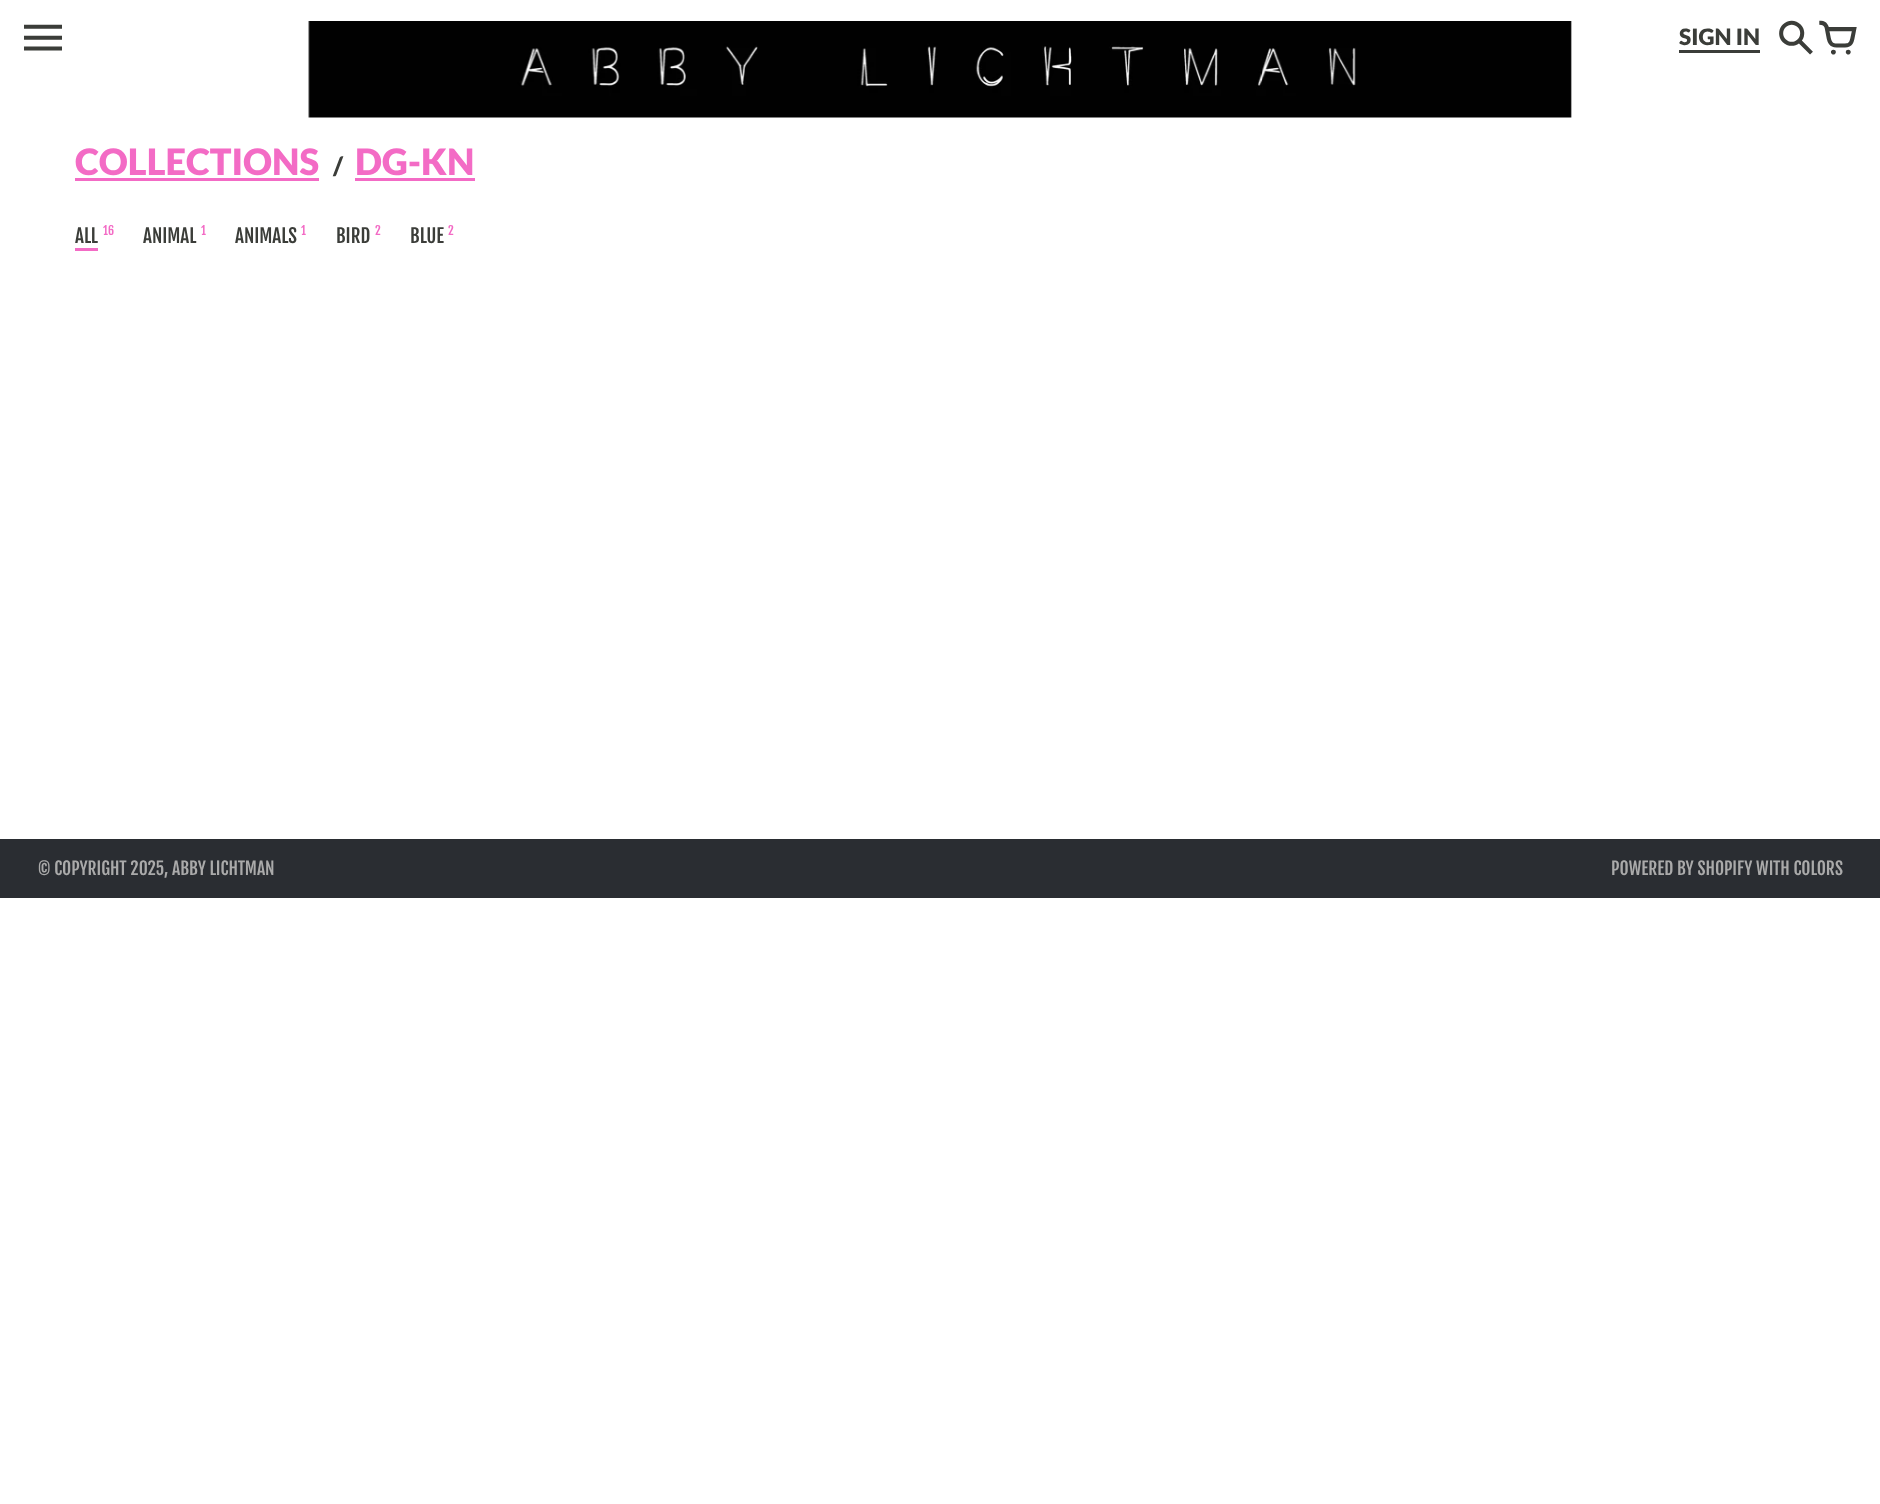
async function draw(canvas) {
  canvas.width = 1880
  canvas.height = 1504
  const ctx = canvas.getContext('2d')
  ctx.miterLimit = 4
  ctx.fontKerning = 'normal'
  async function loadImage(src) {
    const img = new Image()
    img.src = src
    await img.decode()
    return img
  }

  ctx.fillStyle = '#fff'
  ctx.fillRect(0, 0, 1880, 1504)
  ctx.font = '38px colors'
  ctx.fillStyle = '#3b3d39'
  ctx.fillText('1', 24, 59)
  ctx.drawImage(await loadImage('image0.png'), 308, 21, 1264, 97)
  ctx.font = '900 22.5px Lato'
  ctx.fillText('SIGN IN', 1679, 45)
  ctx.fillRect(1679, 50, 81, 3)
  ctx.font = '38px colors'
  ctx.fillText('2', 1777, 59)
  ctx.fillText('3', 1819, 59)
  ctx.font = '900 36.25px Lato'
  ctx.fillStyle = '#f36bc5'
  ctx.fillText('COLLECTIONS', 75, 175)
  ctx.fillRect(75, 178, 244, 3)
  ctx.font = '900 25px Lato'
  ctx.fillStyle = '#3b3d39'
  ctx.fillText('/', 333, 175)
  ctx.font = '900 36.25px Lato'
  ctx.fillStyle = '#f36bc5'
  ctx.fillText('DG-KN', 355, 175)
  ctx.fillRect(355, 178, 120, 3)
  ctx.font = '19px Fjalla One'
  ctx.fillStyle = '#3b3d39'
  ctx.fillText('ALL', 75, 243)
  ctx.fillStyle = '#f36bc5'
  ctx.fillRect(75, 248, 23, 3)
  ctx.font = '12px Fjalla One'
  ctx.fillText('16', 103, 235)
  ctx.font = '19px Fjalla One'
  ctx.fillStyle = '#3b3d39'
  ctx.fillText('ANIMAL', 143, 243)
  ctx.font = '12px Fjalla One'
  ctx.fillStyle = '#f36bc5'
  ctx.fillText('1', 201, 235)
  ctx.font = '19px Fjalla One'
  ctx.fillStyle = '#3b3d39'
  ctx.fillText('ANIMALS', 235, 243)
  ctx.font = '12px Fjalla One'
  ctx.fillStyle = '#f36bc5'
  ctx.fillText('1', 301, 235)
  ctx.font = '19px Fjalla One'
  ctx.fillStyle = '#3b3d39'
  ctx.fillText('BIRD', 336, 243)
  ctx.font = '12px Fjalla One'
  ctx.fillStyle = '#f36bc5'
  ctx.fillText('2', 375, 235)
  ctx.font = '19px Fjalla One'
  ctx.fillStyle = '#3b3d39'
  ctx.fillText('BLUE', 410, 243)
  ctx.font = '12px Fjalla One'
  ctx.fillStyle = '#f36bc5'
  ctx.fillText('2', 448, 235)
  ctx.fillStyle = '#2a2d32'
  ctx.fillRect(0, 839, 1880, 59)
  ctx.font = '17.5px Fjalla One'
  ctx.fillStyle = '#aaa'
  ctx.fillText('© COPYRIGHT 2025, ABBY LICHTMAN', 38, 875)
  ctx.fillText('POWERED BY SHOPIFY WITH COLORS', 1611, 875)
}

draw(document.querySelector('canvas'))
